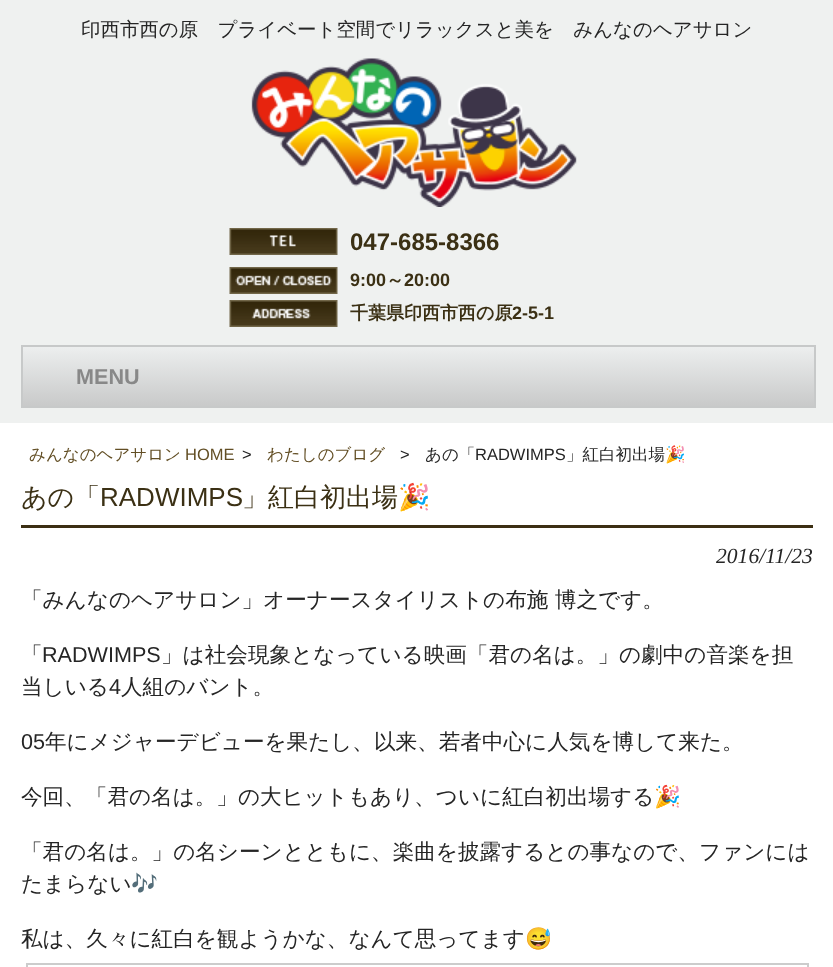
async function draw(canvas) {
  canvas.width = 833
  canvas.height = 967
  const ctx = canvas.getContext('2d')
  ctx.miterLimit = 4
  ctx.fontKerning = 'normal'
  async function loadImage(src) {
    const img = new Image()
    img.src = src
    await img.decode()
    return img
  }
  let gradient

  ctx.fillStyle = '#fff'
  ctx.fillRect(0, 0, 833, 967)
  ctx.fillStyle = '#eff1f0'
  ctx.fillRect(0, 0, 833, 423)
  ctx.font = '500 19.45px WenQuanYi Zen Hei'
  ctx.fillStyle = '#252525'
  ctx.fillText('印西市西の原　プライベート空間でリラックスと美を　みんなのヘアサロン', 81, 36)
  ctx.drawImage(await loadImage('image0.png'), 251, 58, 326, 149)
  ctx.drawImage(await loadImage('image1.png'), 229, 228, 109, 27)
  ctx.font = 'bold 24px Liberation Sans'
  ctx.fillStyle = '#3b3014'
  ctx.fillText('047-685-8366', 350, 250)
  ctx.drawImage(await loadImage('image2.png'), 229, 267, 109, 27)
  ctx.font = 'bold 18px Liberation Sans'
  ctx.fillText('9:00', 350, 286)
  ctx.font = 'bold 18px WenQuanYi Zen Hei'
  ctx.fillText('～', 386, 286)
  ctx.font = 'bold 18px Liberation Sans'
  ctx.fillText('20:00', 404, 286)
  ctx.drawImage(await loadImage('image3.png'), 229, 300, 109, 27)
  ctx.font = 'bold 18px WenQuanYi Zen Hei'
  ctx.fillText('千葉県印西市西の原', 350, 319)
  ctx.font = 'bold 18px Liberation Sans'
  ctx.fillText('2-5-1', 512, 319)
  gradient = ctx.createLinearGradient(419, 346, 419, 407)
  gradient.addColorStop(0, '#edefef')
  gradient.addColorStop(1, '#c8c9c9')
  ctx.fillStyle = gradient
  ctx.fillRect(23, 347, 791, 59)
  ctx.strokeStyle = '#c7c9c9'
  ctx.lineWidth = 2
  ctx.strokeRect(22, 346, 793, 61)
  ctx.font = 'bold 21.6px Liberation Sans'
  ctx.fillStyle = '#888'
  ctx.fillText('MENU', 76, 384)
  ctx.font = '500 16.5px WenQuanYi Zen Hei'
  ctx.fillStyle = '#624e24'
  ctx.fillText('みんなのヘアサロン', 29, 460)
  ctx.font = '16.5px Liberation Sans'
  ctx.fillText('HOME', 185, 460)
  ctx.fillStyle = '#252525'
  ctx.fillText('>', 242, 460)
  ctx.font = '500 16.5px WenQuanYi Zen Hei'
  ctx.fillStyle = '#624e24'
  ctx.fillText('わたしのブログ', 267, 460)
  ctx.font = '16.5px Liberation Sans'
  ctx.fillStyle = '#252525'
  ctx.fillText('>', 400, 460)
  ctx.font = '500 16.5px WenQuanYi Zen Hei'
  ctx.fillText('あの「', 425, 460)
  ctx.font = '16.5px Liberation Sans'
  ctx.fillText('RADWIMPS', 475, 460)
  ctx.font = '500 16.5px WenQuanYi Zen Hei'
  ctx.fillText('」紅白初出場', 566, 460)
  ctx.font = '16.5px Noto Color Emoji'
  ctx.fillText('🎉', 665, 460)
  ctx.fillStyle = '#3c2f13'
  ctx.fillRect(21, 525, 792, 3)
  ctx.font = '500 26px WenQuanYi Zen Hei'
  ctx.fillStyle = '#3b3014'
  ctx.fillText('あの「', 21, 506)
  ctx.font = '26px Liberation Sans'
  ctx.fillText('RADWIMPS', 100, 506)
  ctx.font = '500 26px WenQuanYi Zen Hei'
  ctx.fillText('」紅白初出場', 242, 506)
  ctx.font = '26px Noto Color Emoji'
  ctx.fillText('🎉', 398, 506)
  ctx.font = 'italic 21.6px Liberation Serif'
  ctx.fillStyle = '#252525'
  ctx.fillText('2016/11/23', 716, 563)
  ctx.font = '500 21.6px WenQuanYi Zen Hei'
  ctx.fillText('「みんなのヘアサロン」オーナースタイリストの布施 博之です。', 21, 607)
  ctx.fillText('「', 21, 662)
  ctx.font = '21.6px Liberation Sans'
  ctx.fillText('RADWIMPS', 42, 662)
  ctx.font = '500 21.6px WenQuanYi Zen Hei'
  ctx.fillText('」は社会現象となっている映画「君の名は。」の劇中の音楽を担', 161, 662)
  ctx.fillText('当しいる', 21, 694)
  ctx.font = '21.6px Liberation Sans'
  ctx.fillText('4', 109, 694)
  ctx.font = '500 21.6px WenQuanYi Zen Hei'
  ctx.fillText('人組のバント。', 121, 694)
  ctx.font = '21.6px Liberation Sans'
  ctx.fillText('05', 21, 749)
  ctx.font = '500 21.6px WenQuanYi Zen Hei'
  ctx.fillText('年にメジャーデビューを果たし、以来、若者中心に人気を博して来た。', 45, 749)
  ctx.fillText('今回、「君の名は。」の大ヒットもあり、ついに紅白初出場する', 21, 804)
  ctx.font = '21.6px Noto Color Emoji'
  ctx.fillText('🎉', 654, 804)
  ctx.font = '500 21.6px WenQuanYi Zen Hei'
  ctx.fillText('「君の名は。」の名シーンとともに、楽曲を披露するとの事なので、ファンには', 21, 859)
  ctx.fillText('たまらない', 21, 891)
  ctx.font = '21.6px Noto Color Emoji'
  ctx.fillText('🎶', 131, 891)
  ctx.font = '500 21.6px WenQuanYi Zen Hei'
  ctx.fillText('私は、久々に紅白を観ようかな、なんて思ってます', 21, 946)
  ctx.font = '21.6px Noto Color Emoji'
  ctx.fillText('😅', 525, 946)
  ctx.strokeStyle = '#ccc'
  ctx.strokeRect(27, 964, 781, 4)
}

draw(document.querySelector('canvas'))
